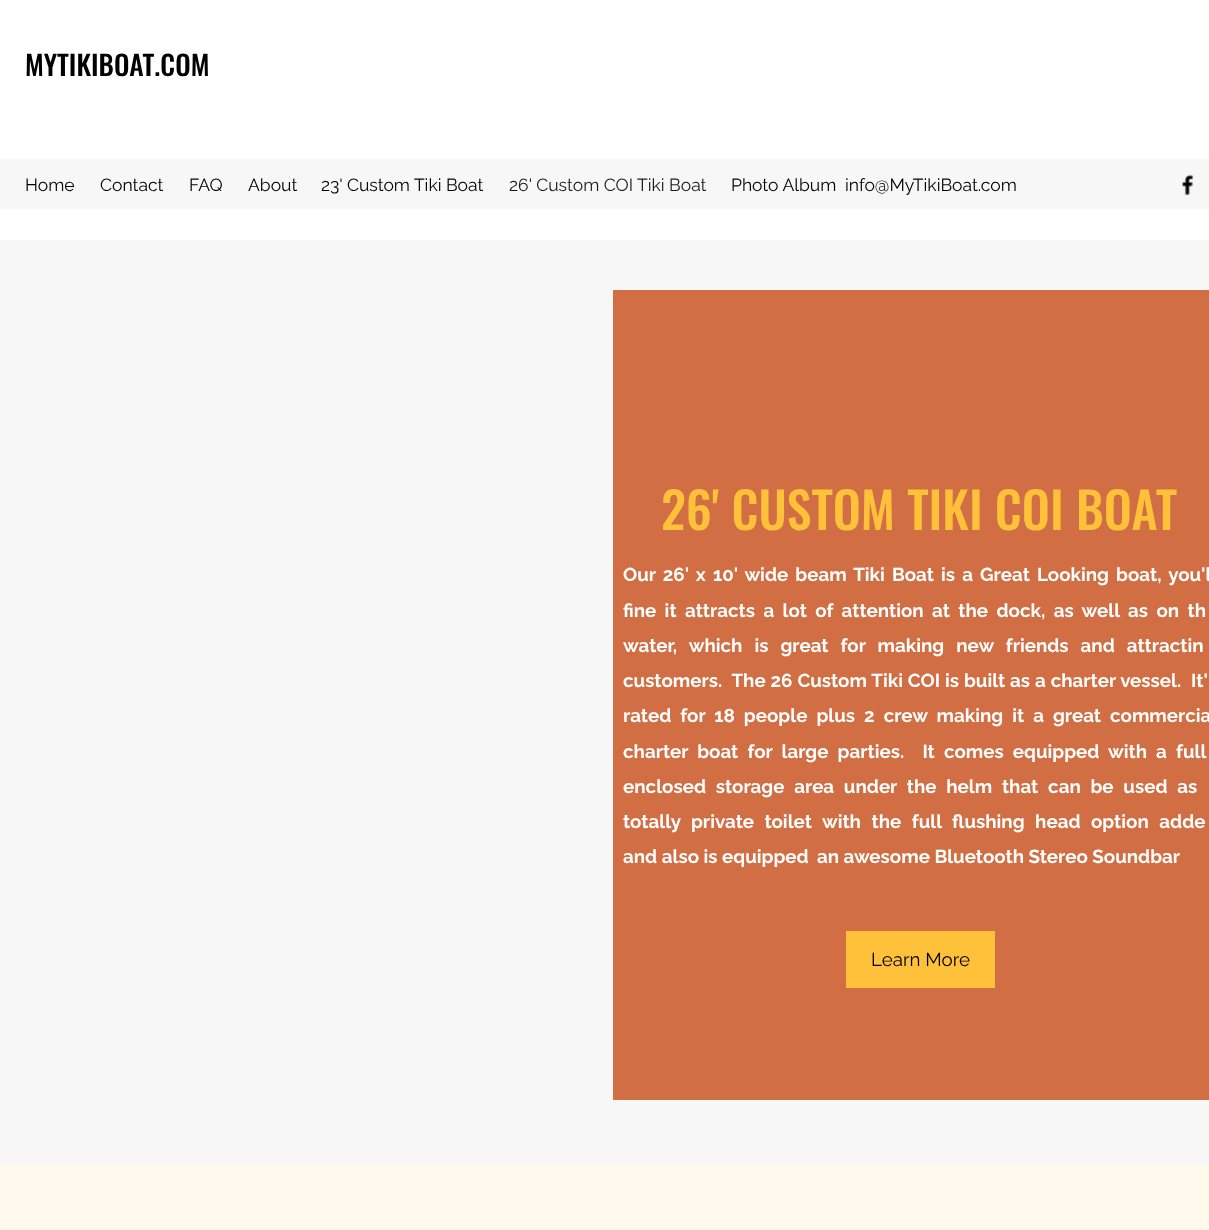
async function draw(canvas) {
  canvas.width = 1209
  canvas.height = 1230
  const ctx = canvas.getContext('2d')
  ctx.miterLimit = 4
  ctx.fontKerning = 'normal'
  async function loadImage(src) {
    const img = new Image()
    img.src = src
    await img.decode()
    return img
  }

  ctx.fillStyle = '#f7f7f7'
  ctx.fillRect(0, 0, 1209, 1230)
  ctx.fillStyle = '#fff'
  ctx.fillRect(0, 0, 1209, 240)
  ctx.font = '500 27.5px Oswald'
  ctx.fillStyle = '#000'
  ctx.fillText('MYTIKIBOAT.COM', 25, 76)
  ctx.fillStyle = '#f7f7f7'
  ctx.fillRect(0, 159, 1209, 50)
  ctx.font = '17.5px Raleway'
  ctx.fillStyle = '#000'
  ctx.fillText('Home', 25, 191)
  ctx.fillText('Contact', 100, 191)
  ctx.fillText('FAQ', 189, 191)
  ctx.fillText('About', 248, 191)
  ctx.fillText('23\' Custom Tiki Boat', 321, 191)
  ctx.fillStyle = '#191919'
  ctx.fillText('26\' Custom COI Tiki Boat', 509, 191)
  ctx.fillStyle = '#000'
  ctx.fillText('Photo Album', 731, 191)
  ctx.fillText('info@MyTikiBoat.com', 845, 191)
  ctx.drawImage(await loadImage('image0.png'), 1182, 174, 12, 22)
  ctx.fillStyle = '#d16e43'
  ctx.fillRect(613, 290, 596, 810)
  ctx.font = '500 50px Oswald'
  ctx.fillStyle = '#ffc03a'
  ctx.fillText('26\' CUSTOM TIKI COI BOAT', 661, 530)
  ctx.wordSpacing = '2.6px'
  ctx.font = 'bold 18.75px Raleway'
  ctx.fillStyle = '#fff'
  ctx.fillText('Our 26\' x 10\' wide beam Tiki Boat is a Great Looking boat, you\'l', 623, 581)
  ctx.wordSpacing = '3.9px'
  ctx.fillText('fine it attracts a lot of attention at the dock, as well as on th', 623, 617)
  ctx.wordSpacing = '7.5px'
  ctx.fillText('water, which is great for making new friends and attractin', 623, 652)
  ctx.wordSpacing = '0.4px'
  ctx.fillText('customers.  The 26 Custom Tiki COI is built as a charter vessel.  It\'', 623, 687)
  ctx.wordSpacing = '4.5px'
  ctx.fillText('rated for 18 people plus 2 crew making it a great commercia', 623, 722)
  ctx.wordSpacing = '4.6px'
  ctx.fillText('charter boat for large parties.  It comes equipped with a full', 623, 758)
  ctx.wordSpacing = '5.25px'
  ctx.fillText('enclosed storage area under the helm that can be used as', 623, 793)
  ctx.wordSpacing = '6px'
  ctx.fillText('totally private toilet with the full flushing head option adde', 623, 828)
  ctx.wordSpacing = '0px'
  ctx.fillText('and also is equipped', 623, 863)
  ctx.fillText('an awesome Bluetooth Stereo Soundbar', 817, 863)
  ctx.fillStyle = '#ffc03a'
  ctx.fillRect(846, 931, 149, 57)
  ctx.font = '18.75px Raleway'
  ctx.fillStyle = '#000'
  ctx.fillText('Learn More', 871, 966)
  ctx.fillStyle = '#fff9eb'
  ctx.fillRect(0, 1165, 1209, 65)
}

draw(document.querySelector('canvas'))
